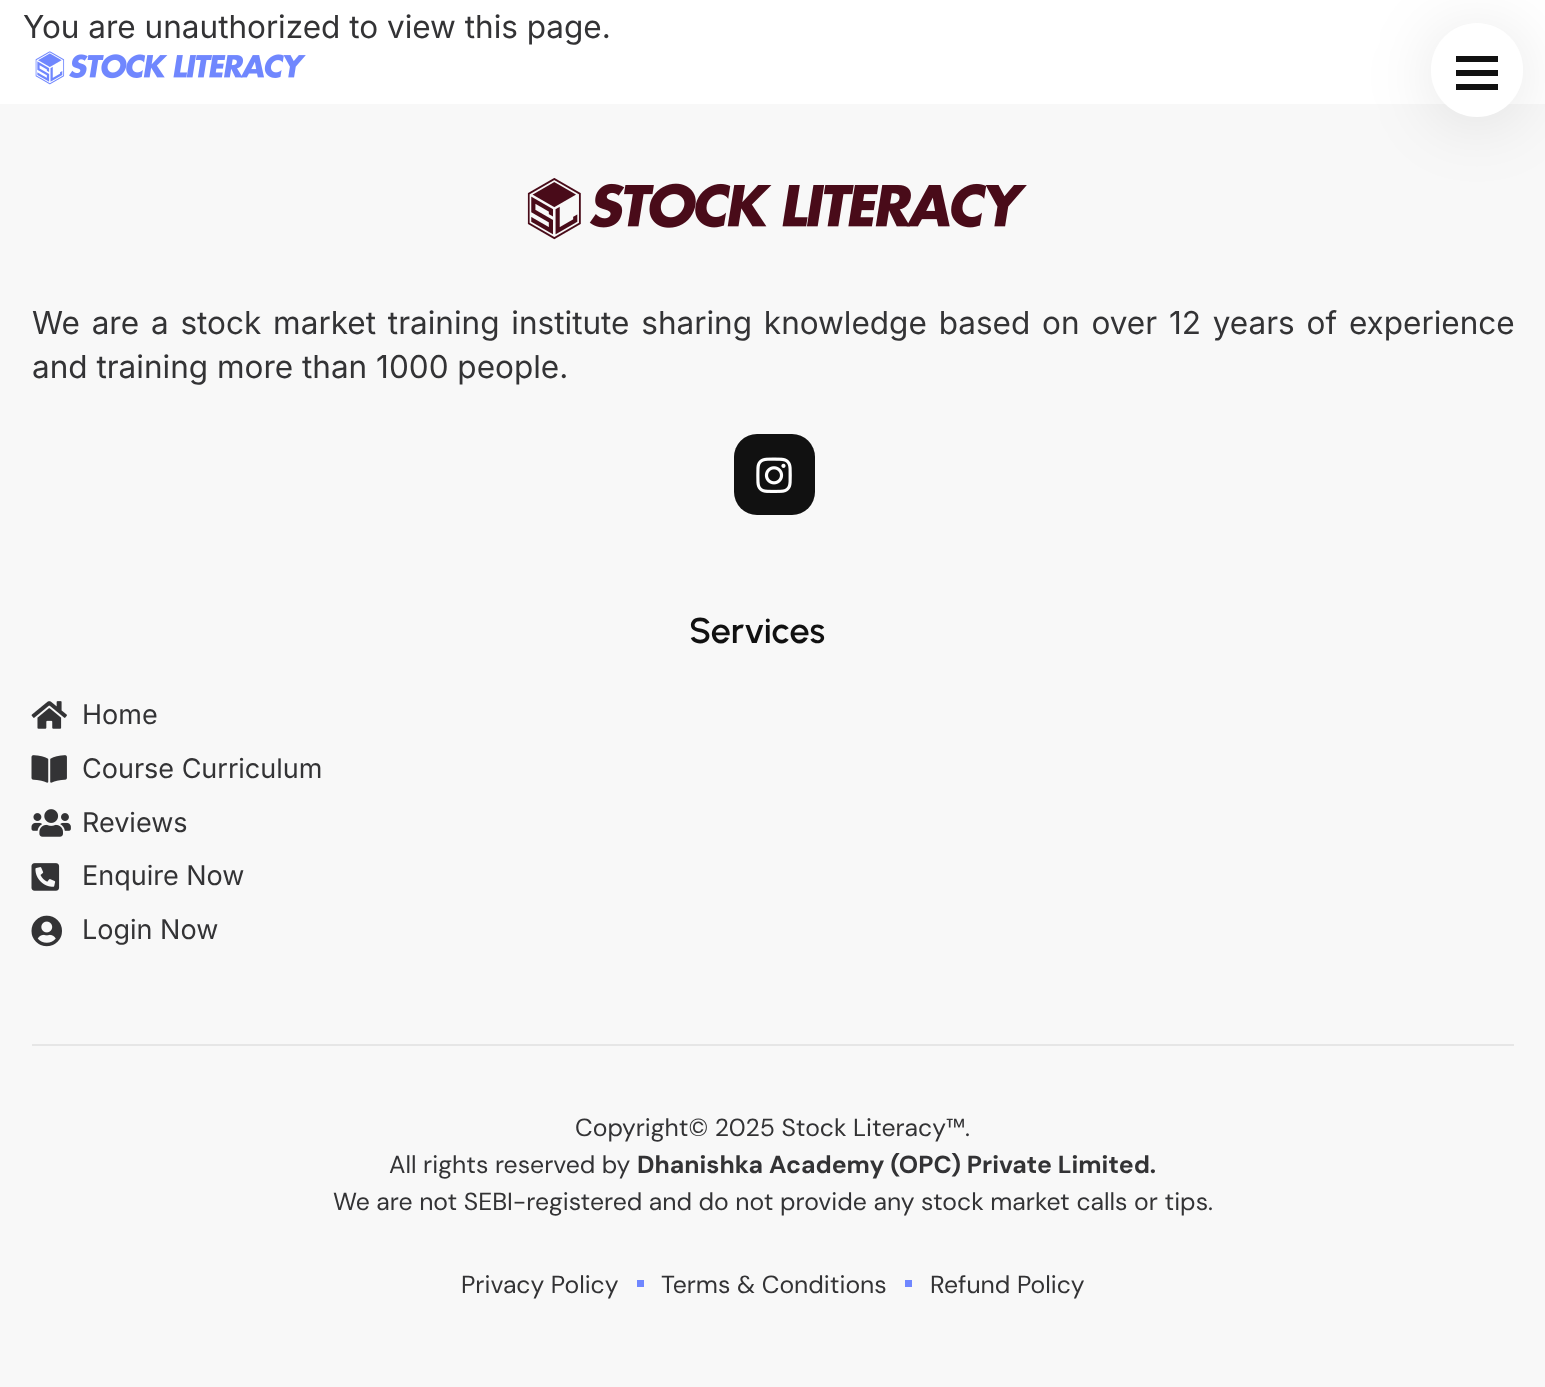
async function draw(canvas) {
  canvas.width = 1545
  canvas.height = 1387
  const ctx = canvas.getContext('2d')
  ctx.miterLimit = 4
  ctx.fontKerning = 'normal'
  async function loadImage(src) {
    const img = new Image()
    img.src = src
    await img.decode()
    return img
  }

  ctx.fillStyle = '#fff'
  ctx.fillRect(0, 0, 1545, 1387)
  ctx.drawImage(await loadImage('image0.png'), 35, 51, 271, 34)
  ctx.fillStyle = '#f8f8f8'
  ctx.fillRect(0, 104, 1545, 1283)
  ctx.fillStyle = '#0000001a'
  ctx.filter = 'blur(34px)'
  ctx.beginPath()
  ctx.roundRect(1431, 29, 92, 95, 46)
  ctx.fill()
  ctx.filter = 'none'
  ctx.fillStyle = '#fff'
  ctx.beginPath()
  ctx.roundRect(1431, 23, 92, 94, 46)
  ctx.fill()
  ctx.fillStyle = '#111'
  ctx.beginPath()
  ctx.moveTo(1498, 56)
  ctx.lineTo(1498, 62)
  ctx.lineTo(1456, 62)
  ctx.lineTo(1456, 56)
  ctx.closePath()
  ctx.moveTo(1456, 76)
  ctx.lineTo(1498, 76)
  ctx.lineTo(1498, 70)
  ctx.lineTo(1456, 70)
  ctx.closePath()
  ctx.moveTo(1456, 90)
  ctx.lineTo(1498, 90)
  ctx.lineTo(1498, 84)
  ctx.lineTo(1456, 84)
  ctx.closePath()
  ctx.fill()
  ctx.font = '31.5px Inter'
  ctx.fillStyle = '#333335'
  ctx.fillText('You are unauthorized to view this page.', 23, 38)
  ctx.drawImage(await loadImage('image1.png'), 527, 178, 500, 62)
  ctx.wordSpacing = '3px'
  ctx.fillText('We are a stock market training institute sharing knowledge based on over 12 years of experience', 32, 334)
  ctx.wordSpacing = '0px'
  ctx.fillText('and training more than 1000 people.', 32, 378)
  ctx.fillStyle = '#111'
  ctx.beginPath()
  ctx.roundRect(734, 434, 81, 81, 23)
  ctx.fill()
  ctx.drawImage(await loadImage('image2.png'), 756, 457, 36, 36)
  ctx.font = '600 36px Urbanist'
  ctx.fillText('Services', 689, 643)
  ctx.drawImage(await loadImage('image3.png'), 31, 701, 36, 28)
  ctx.font = '27px Inter'
  ctx.fillStyle = '#333335'
  ctx.fillText('Home', 82, 724)
  ctx.drawImage(await loadImage('image4.png'), 31, 755, 36, 28)
  ctx.fillText('Course Curriculum', 82, 778)
  ctx.drawImage(await loadImage('image5.png'), 31, 809, 40, 28)
  ctx.fillText('Reviews', 82, 832)
  ctx.drawImage(await loadImage('image6.png'), 31, 863, 29, 28)
  ctx.fillText('Enquire Now', 82, 885)
  ctx.drawImage(await loadImage('image7.png'), 31, 915, 31, 32)
  ctx.fillText('Login Now', 82, 939)
  ctx.fillStyle = '#e6e6e6'
  ctx.fillRect(32, 1044, 1482, 2)
  ctx.font = '24.75px DM Sans'
  ctx.fillStyle = '#333335'
  ctx.fillText('Copyright© 2025 Stock Literacy™.', 575, 1136)
  ctx.fillText('All rights reserved by', 389, 1173)
  ctx.font = 'bold 24.75px DM Sans'
  ctx.fillText('Dhanishka Academy (OPC) Private Limited.', 637, 1173)
  ctx.font = '24.75px DM Sans'
  ctx.fillText('We are not SEBI-registered and do not provide any stock market calls or tips.', 333, 1210)
  ctx.fillText('Privacy Policy', 461, 1293)
  ctx.fillStyle = '#7087ff'
  ctx.fillRect(637, 1280, 7, 7)
  ctx.fillStyle = '#333335'
  ctx.fillText('Terms & Conditions', 661, 1293)
  ctx.fillStyle = '#7087ff'
  ctx.fillRect(905, 1280, 7, 7)
  ctx.fillStyle = '#333335'
  ctx.fillText('Refund Policy', 930, 1293)
}

draw(document.querySelector('canvas'))
